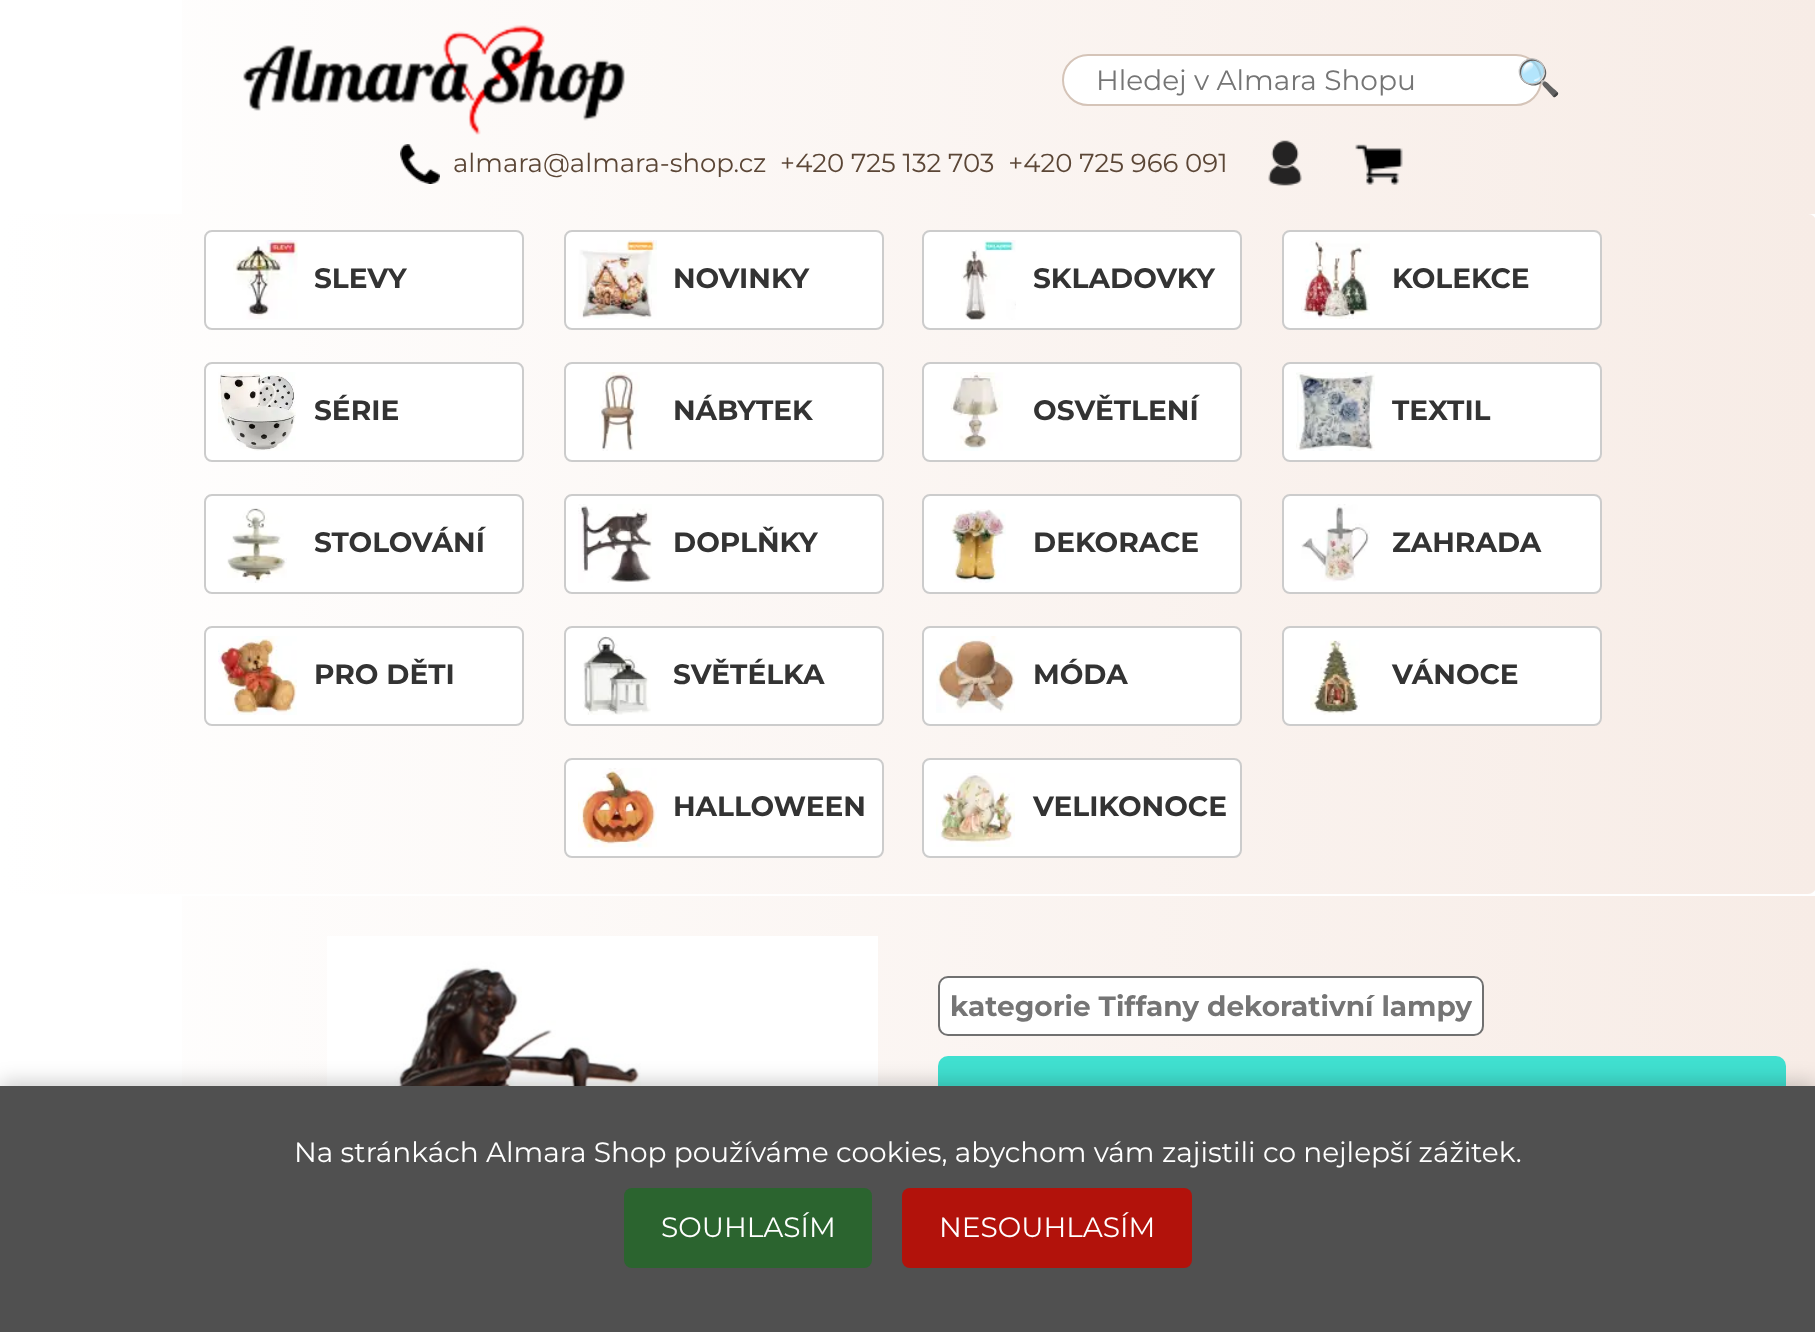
async function draw(canvas) {
  canvas.width = 1815
  canvas.height = 1332
  const ctx = canvas.getContext('2d')
  ctx.miterLimit = 4
  ctx.fontKerning = 'normal'
  async function loadImage(src) {
    const img = new Image()
    img.src = src
    await img.decode()
    return img
  }
  let gradient

  ctx.fillStyle = '#fff'
  ctx.fillRect(0, 0, 1815, 1332)
  gradient = ctx.createLinearGradient(0, 107, 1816, 107)
  gradient.addColorStop(0, '#fff')
  gradient.addColorStop(1, '#f7ece6')
  ctx.fillStyle = gradient
  ctx.fillRect(182, 0, 1633, 214)
  ctx.drawImage(await loadImage('image0.png'), 243, 25, 382, 110)
  ctx.fillStyle = '#fff'
  ctx.beginPath()
  ctx.roundRect(1063, 55, 478, 50, 25)
  ctx.fill()
  ctx.strokeStyle = '#d5c4b8'
  ctx.lineWidth = 2
  ctx.stroke()
  ctx.font = '28px Montserrat'
  ctx.fillStyle = '#757575'
  ctx.fillText('Hledej v Almara Shopu', 1096, 90)
  ctx.font = '36px Noto Color Emoji'
  ctx.fillStyle = '#333'
  ctx.fillText('🔍', 1516, 90)
  ctx.drawImage(await loadImage('image1.png'), 400, 144, 40, 40)
  ctx.font = '26px Montserrat'
  ctx.fillStyle = '#5b4636'
  ctx.fillText('almara@almara-shop.cz  +420 725 132 703  +420 725 966 091', 453, 172)
  ctx.drawImage(await loadImage('image2.png'), 1268, 140, 34, 46)
  ctx.drawImage(await loadImage('image3.png'), 1355, 144, 48, 41)
  gradient = ctx.createLinearGradient(0, 554, 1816, 554)
  gradient.addColorStop(0, '#fff')
  gradient.addColorStop(1, '#f7ece6')
  ctx.fillStyle = gradient
  ctx.beginPath()
  ctx.roundRect(0, 214, 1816, 680, 8)
  ctx.fill()
  ctx.fillStyle = '#fff'
  ctx.beginPath()
  ctx.roundRect(205, 231, 318, 98, 7)
  ctx.fill()
  ctx.strokeStyle = '#ccc'
  ctx.stroke()
  ctx.drawImage(await loadImage('image4.png'), 233, 240, 65, 80)
  ctx.font = 'bold 28px Montserrat'
  ctx.fillStyle = '#333'
  ctx.fillText('SLEVY', 314, 288)
  ctx.fillStyle = '#fff'
  ctx.beginPath()
  ctx.roundRect(565, 231, 318, 98, 7)
  ctx.fill()
  ctx.stroke()
  ctx.drawImage(await loadImage('image5.png'), 578, 240, 79, 79)
  ctx.fillStyle = '#333'
  ctx.fillText('NOVINKY', 673, 288)
  ctx.fillStyle = '#fff'
  ctx.beginPath()
  ctx.roundRect(923, 231, 318, 98, 7)
  ctx.fill()
  ctx.stroke()
  ctx.drawImage(await loadImage('image6.png'), 961, 240, 55, 80)
  ctx.fillStyle = '#333'
  ctx.fillText('SKLADOVKY', 1033, 288)
  ctx.fillStyle = '#fff'
  ctx.beginPath()
  ctx.roundRect(1283, 231, 318, 98, 7)
  ctx.fill()
  ctx.stroke()
  ctx.drawImage(await loadImage('image7.png'), 1301, 240, 69, 79)
  ctx.fillStyle = '#333'
  ctx.fillText('KOLEKCE', 1392, 288)
  ctx.fillStyle = '#fff'
  ctx.beginPath()
  ctx.roundRect(205, 363, 318, 98, 7)
  ctx.fill()
  ctx.stroke()
  ctx.drawImage(await loadImage('image8.png'), 218, 372, 78, 79)
  ctx.fillStyle = '#333'
  ctx.fillText('SÉRIE', 314, 420)
  ctx.fillStyle = '#fff'
  ctx.beginPath()
  ctx.roundRect(565, 363, 318, 98, 7)
  ctx.fill()
  ctx.stroke()
  ctx.drawImage(await loadImage('image9.png'), 599, 372, 41, 79)
  ctx.fillStyle = '#333'
  ctx.fillText('NÁBYTEK', 673, 420)
  ctx.fillStyle = '#fff'
  ctx.beginPath()
  ctx.roundRect(923, 363, 318, 98, 7)
  ctx.fill()
  ctx.stroke()
  ctx.drawImage(await loadImage('image10.png'), 950, 372, 53, 79)
  ctx.fillStyle = '#333'
  ctx.fillText('OSVĚTLENÍ', 1033, 420)
  ctx.fillStyle = '#fff'
  ctx.beginPath()
  ctx.roundRect(1283, 363, 318, 98, 7)
  ctx.fill()
  ctx.stroke()
  ctx.drawImage(await loadImage('image11.png'), 1296, 372, 79, 79)
  ctx.fillStyle = '#333'
  ctx.fillText('TEXTIL', 1392, 420)
  ctx.fillStyle = '#fff'
  ctx.beginPath()
  ctx.roundRect(205, 495, 318, 98, 7)
  ctx.fill()
  ctx.stroke()
  ctx.drawImage(await loadImage('image12.png'), 227, 508, 60, 75)
  ctx.fillStyle = '#333'
  ctx.fillText('STOLOVÁNÍ', 314, 552)
  ctx.fillStyle = '#fff'
  ctx.beginPath()
  ctx.roundRect(565, 495, 318, 98, 7)
  ctx.fill()
  ctx.stroke()
  ctx.drawImage(await loadImage('image13.png'), 578, 504, 74, 79)
  ctx.fillStyle = '#333'
  ctx.fillText('DOPLŇKY', 673, 552)
  ctx.fillStyle = '#fff'
  ctx.beginPath()
  ctx.roundRect(923, 495, 318, 98, 7)
  ctx.fill()
  ctx.stroke()
  ctx.drawImage(await loadImage('image14.png'), 950, 509, 56, 74)
  ctx.fillStyle = '#333'
  ctx.fillText('DEKORACE', 1033, 552)
  ctx.fillStyle = '#fff'
  ctx.beginPath()
  ctx.roundRect(1283, 495, 318, 98, 7)
  ctx.fill()
  ctx.stroke()
  ctx.drawImage(await loadImage('image15.png'), 1301, 504, 69, 78)
  ctx.fillStyle = '#333'
  ctx.fillText('ZAHRADA', 1392, 552)
  ctx.fillStyle = '#fff'
  ctx.beginPath()
  ctx.roundRect(205, 627, 318, 98, 7)
  ctx.fill()
  ctx.stroke()
  ctx.drawImage(await loadImage('image16.png'), 218, 636, 79, 79)
  ctx.fillStyle = '#333'
  ctx.fillText('PRO DĚTI', 314, 684)
  ctx.fillStyle = '#fff'
  ctx.beginPath()
  ctx.roundRect(565, 627, 318, 98, 7)
  ctx.fill()
  ctx.stroke()
  ctx.drawImage(await loadImage('image17.png'), 583, 636, 68, 79)
  ctx.fillStyle = '#333'
  ctx.fillText('SVĚTÉLKA', 673, 684)
  ctx.fillStyle = '#fff'
  ctx.beginPath()
  ctx.roundRect(923, 627, 318, 98, 7)
  ctx.fill()
  ctx.stroke()
  ctx.drawImage(await loadImage('image18.png'), 936, 636, 79, 77)
  ctx.fillStyle = '#333'
  ctx.fillText('MÓDA', 1033, 684)
  ctx.fillStyle = '#fff'
  ctx.beginPath()
  ctx.roundRect(1283, 627, 318, 98, 7)
  ctx.fill()
  ctx.stroke()
  ctx.drawImage(await loadImage('image19.png'), 1310, 640, 50, 75)
  ctx.fillStyle = '#333'
  ctx.fillText('VÁNOCE', 1392, 684)
  ctx.fillStyle = '#fff'
  ctx.beginPath()
  ctx.roundRect(565, 759, 318, 98, 7)
  ctx.fill()
  ctx.stroke()
  ctx.drawImage(await loadImage('image20.png'), 578, 768, 79, 80)
  ctx.fillStyle = '#333'
  ctx.fillText('HALLOWEEN', 673, 816)
  ctx.fillStyle = '#fff'
  ctx.beginPath()
  ctx.roundRect(923, 759, 318, 98, 7)
  ctx.fill()
  ctx.stroke()
  ctx.drawImage(await loadImage('image21.png'), 936, 773, 79, 74)
  ctx.fillStyle = '#333'
  ctx.fillText('VELIKONOCE', 1033, 816)
  gradient = ctx.createLinearGradient(0, 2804, 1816, 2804)
  gradient.addColorStop(0, '#fff')
  gradient.addColorStop(1, '#f7ece6')
  ctx.fillStyle = gradient
  ctx.fillRect(182, 896, 1633, 190)
  ctx.drawImage(await loadImage('image22.png'), 327, 936, 551, 150)
  ctx.fillStyle = '#fff'
  ctx.beginPath()
  ctx.roundRect(939, 977, 544, 58, 9)
  ctx.fill()
  ctx.strokeStyle = '#707070'
  ctx.stroke()
  ctx.fillStyle = '#757575'
  ctx.fillText('kategorie Tiffany dekorativní lampy', 950, 1016)
  ctx.fillStyle = '#40e0d0'
  ctx.beginPath()
  ctx.roundRect(938, 1056, 848, 84, 10)
  ctx.fill()
  ctx.fillStyle = '#00000033'
  ctx.filter = 'blur(10px)'
  ctx.beginPath()
  ctx.rect(0, 1082, 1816, 246)
  ctx.fill()
  ctx.filter = 'none'
  ctx.fillStyle = '#505050'
  ctx.fillRect(0, 1086, 1815, 246)
  ctx.font = '28px Montserrat'
  ctx.fillStyle = '#fff'
  ctx.fillText('Na stránkách Almara Shop používáme cookies, abychom vám zajistili co nejlepší zážitek.', 294, 1162)
  ctx.fillStyle = '#2b642f'
  ctx.beginPath()
  ctx.roundRect(624, 1188, 248, 80, 8)
  ctx.fill()
  ctx.fillStyle = '#fff'
  ctx.fillText('SOUHLASÍM', 661, 1237)
  ctx.fillStyle = '#b2120b'
  ctx.beginPath()
  ctx.roundRect(902, 1188, 290, 80, 8)
  ctx.fill()
  ctx.fillStyle = '#fff'
  ctx.fillText('NESOUHLASÍM', 939, 1237)
}

draw(document.querySelector('canvas'))
